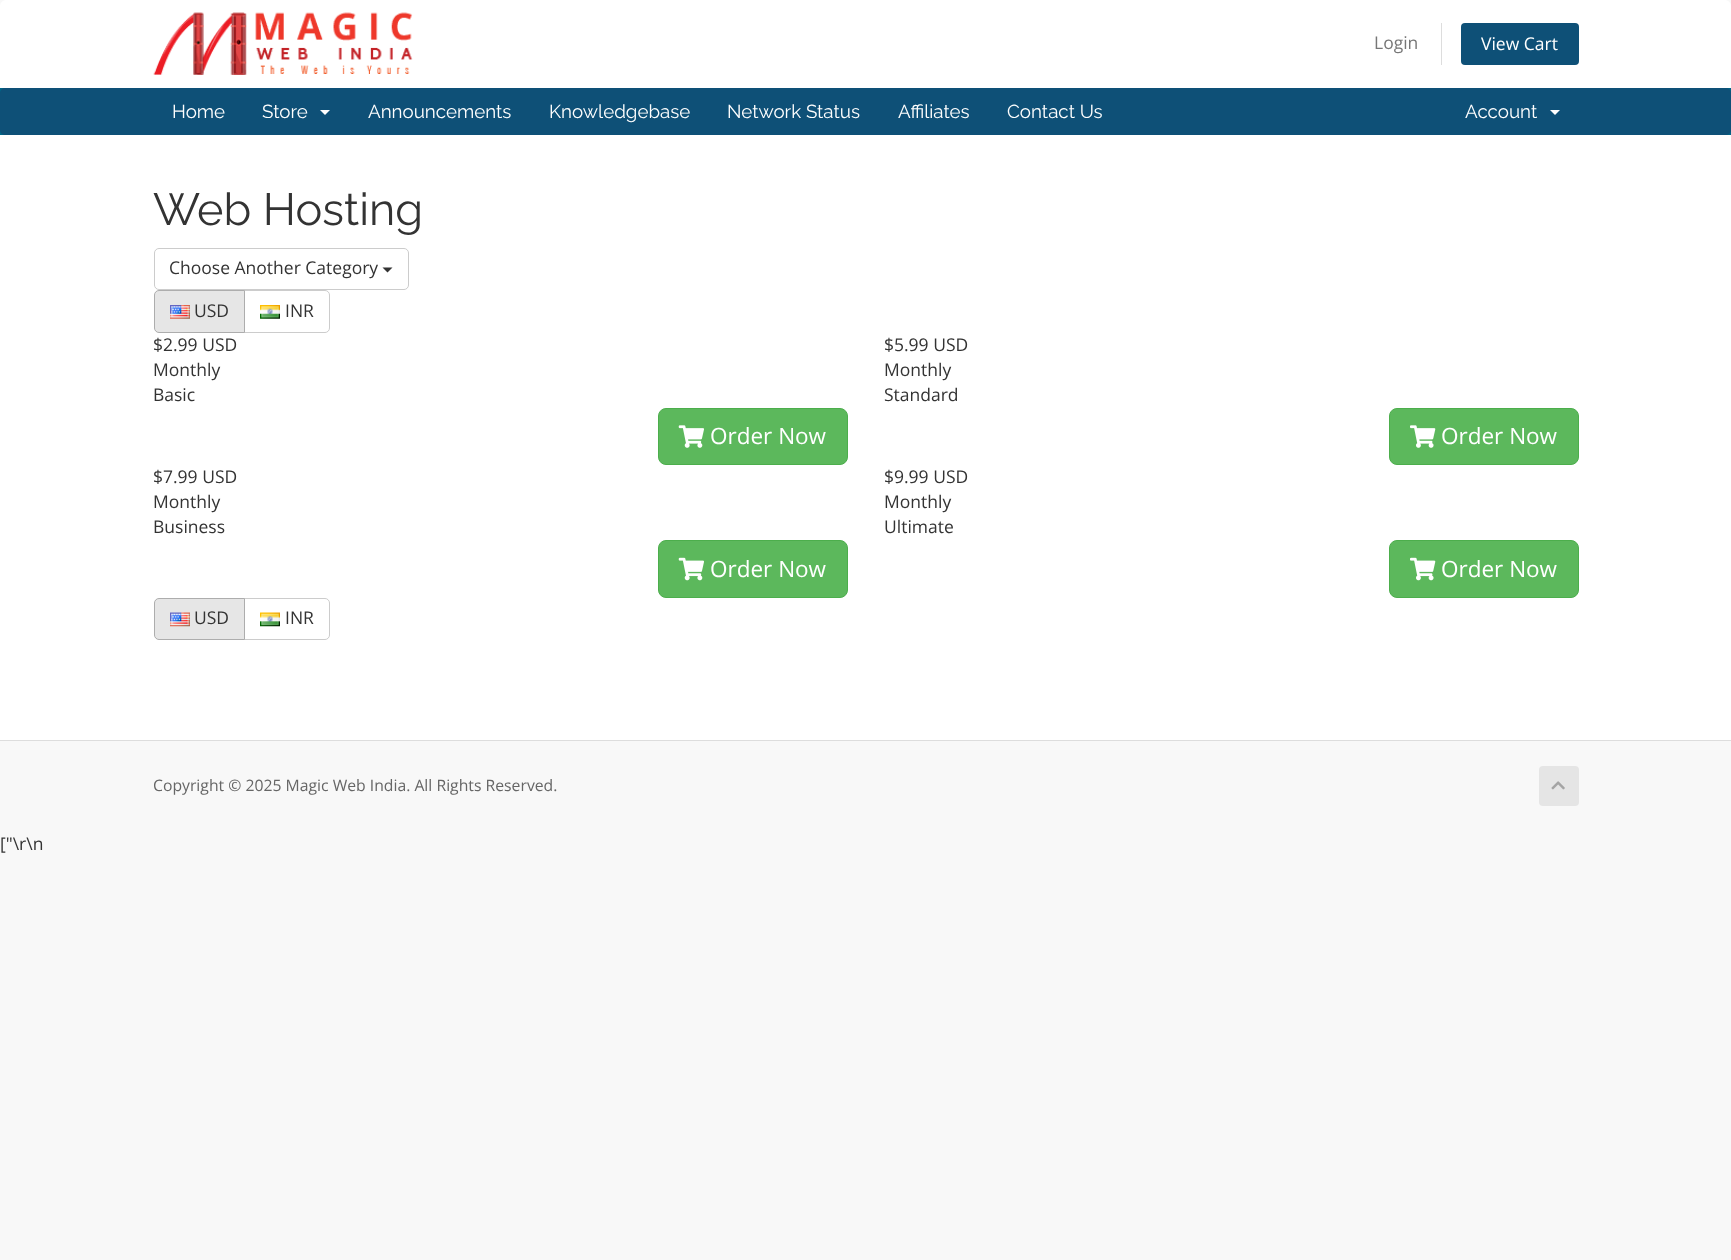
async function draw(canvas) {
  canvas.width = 1731
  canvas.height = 1260
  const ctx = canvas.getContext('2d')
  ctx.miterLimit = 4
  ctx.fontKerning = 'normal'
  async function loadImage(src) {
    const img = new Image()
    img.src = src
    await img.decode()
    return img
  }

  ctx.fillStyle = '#f8f8f8'
  ctx.fillRect(0, 0, 1731, 1260)
  ctx.fillStyle = '#fff'
  ctx.beginPath()
  ctx.roundRect(0, 0, 1731, 88, [6, 6, 0, 0])
  ctx.fill()
  ctx.drawImage(await loadImage('image0.png'), 153, 12, 260, 63)
  ctx.font = '17.5px Open Sans'
  ctx.fillStyle = '#777'
  ctx.fillText('Login', 1374, 49)
  ctx.fillStyle = '#ddd'
  ctx.fillRect(1441, 23, 1, 42)
  ctx.fillStyle = '#0e5077'
  ctx.beginPath()
  ctx.roundRect(1461, 23, 118, 42, 4)
  ctx.fill()
  ctx.fillStyle = '#fff'
  ctx.fillText('View Cart', 1481, 50)
  ctx.fillStyle = '#006687'
  ctx.fillRect(0, 88, 1731, 47)
  ctx.fillStyle = '#0e5077'
  ctx.beginPath()
  ctx.roundRect(0, 88, 1731, 47, 5)
  ctx.fill()
  ctx.font = '18.75px Raleway'
  ctx.fillStyle = '#fff'
  ctx.fillText('Home', 172, 118)
  ctx.fillText('Store', 262, 118)
  ctx.beginPath()
  ctx.moveTo(320, 110)
  ctx.lineTo(330, 110)
  ctx.lineTo(325, 115)
  ctx.closePath()
  ctx.fill()
  ctx.fillText('Announcements', 368, 118)
  ctx.fillText('Knowledgebase', 549, 118)
  ctx.fillText('Network Status', 727, 118)
  ctx.fillText('Affiliates', 898, 118)
  ctx.fillText('Contact Us', 1007, 118)
  ctx.fillText('Account', 1465, 118)
  ctx.beginPath()
  ctx.moveTo(1550, 110)
  ctx.lineTo(1560, 110)
  ctx.lineTo(1555, 115)
  ctx.closePath()
  ctx.fill()
  ctx.fillRect(0, 135, 1731, 605)
  ctx.font = '45px Raleway'
  ctx.fillStyle = '#333'
  ctx.fillText('Web Hosting', 153, 225)
  ctx.beginPath()
  ctx.roundRect(154.5, 248.5, 254, 41, 4.5)
  ctx.strokeStyle = '#ccc'
  ctx.stroke()
  ctx.font = '17.5px Open Sans'
  ctx.fillText('Choose Another Category', 169, 274)
  ctx.beginPath()
  ctx.moveTo(382.5, 267.5)
  ctx.lineTo(392.5, 267.5)
  ctx.lineTo(387.5, 272.5)
  ctx.closePath()
  ctx.fill()
  ctx.beginPath()
  ctx.roundRect(244.5, 290.5, 85, 42, [0, 4.5, 4.5, 0])
  ctx.stroke()
  ctx.fillStyle = '#e6e6e6'
  ctx.beginPath()
  ctx.roundRect(154.5, 290.5, 90, 42, [4.5, 0, 0, 4.5])
  ctx.fill()
  ctx.strokeStyle = '#adadad'
  ctx.stroke()
  ctx.drawImage(await loadImage('image1.png'), 170, 305, 20, 14)
  ctx.fillStyle = '#333'
  ctx.fillText('USD', 194, 317)
  ctx.drawImage(await loadImage('image2.png'), 260, 305, 20, 14)
  ctx.fillText('INR', 285, 317)
  ctx.fillText('$2.99 USD', 153, 351)
  ctx.fillText('Monthly', 153, 376)
  ctx.fillText('Basic', 153, 401)
  ctx.fillStyle = '#5cb85c'
  ctx.beginPath()
  ctx.roundRect(658.5, 408.5, 189, 56, 7.5)
  ctx.fill()
  ctx.strokeStyle = '#4cae4c'
  ctx.stroke()
  ctx.drawImage(await loadImage('image3.png'), 678, 425, 26, 23)
  ctx.font = '22.5px Open Sans'
  ctx.fillStyle = '#fff'
  ctx.fillText('Order Now', 710, 444)
  ctx.font = '17.5px Open Sans'
  ctx.fillStyle = '#333'
  ctx.fillText('$5.99 USD', 884, 351)
  ctx.fillText('Monthly', 884, 376)
  ctx.fillText('Standard', 884, 401)
  ctx.fillStyle = '#5cb85c'
  ctx.beginPath()
  ctx.roundRect(1389.5, 408.5, 189, 56, 7.5)
  ctx.fill()
  ctx.stroke()
  ctx.drawImage(await loadImage('image4.png'), 1410, 425, 26, 23)
  ctx.font = '22.5px Open Sans'
  ctx.fillStyle = '#fff'
  ctx.fillText('Order Now', 1441, 444)
  ctx.font = '17.5px Open Sans'
  ctx.fillStyle = '#333'
  ctx.fillText('$7.99 USD', 153, 483)
  ctx.fillText('Monthly', 153, 508)
  ctx.fillText('Business', 153, 533)
  ctx.fillStyle = '#5cb85c'
  ctx.beginPath()
  ctx.roundRect(658.5, 540.5, 189, 57, 7.5)
  ctx.fill()
  ctx.stroke()
  ctx.drawImage(await loadImage('image5.png'), 678, 557, 26, 24)
  ctx.font = '22.5px Open Sans'
  ctx.fillStyle = '#fff'
  ctx.fillText('Order Now', 710, 577)
  ctx.font = '17.5px Open Sans'
  ctx.fillStyle = '#333'
  ctx.fillText('$9.99 USD', 884, 483)
  ctx.fillText('Monthly', 884, 508)
  ctx.fillText('Ultimate', 884, 533)
  ctx.fillStyle = '#5cb85c'
  ctx.beginPath()
  ctx.roundRect(1389.5, 540.5, 189, 57, 7.5)
  ctx.fill()
  ctx.stroke()
  ctx.drawImage(await loadImage('image6.png'), 1410, 557, 26, 24)
  ctx.font = '22.5px Open Sans'
  ctx.fillStyle = '#fff'
  ctx.fillText('Order Now', 1441, 577)
  ctx.beginPath()
  ctx.roundRect(244.5, 598.5, 85, 41, [0, 4.5, 4.5, 0])
  ctx.strokeStyle = '#ccc'
  ctx.stroke()
  ctx.fillStyle = '#e6e6e6'
  ctx.beginPath()
  ctx.roundRect(154.5, 598.5, 90, 41, [4.5, 0, 0, 4.5])
  ctx.fill()
  ctx.strokeStyle = '#adadad'
  ctx.stroke()
  ctx.drawImage(await loadImage('image7.png'), 170, 612, 20, 15)
  ctx.font = '17.5px Open Sans'
  ctx.fillStyle = '#333'
  ctx.fillText('USD', 194, 624)
  ctx.drawImage(await loadImage('image8.png'), 260, 612, 20, 15)
  ctx.fillText('INR', 285, 624)
  ctx.fillStyle = '#ddd'
  ctx.fillRect(0, 740, 1731, 1)
  ctx.font = '15.75px Open Sans'
  ctx.fillStyle = '#666'
  ctx.fillText('Copyright © 2025 Magic Web India. All Rights Reserved.', 153, 791)
  ctx.fillStyle = '#e5e5e5'
  ctx.beginPath()
  ctx.roundRect(1539, 766, 40, 40, 4)
  ctx.fill()
  ctx.drawImage(await loadImage('image9.png'), 1551, 781, 14, 9)
  ctx.font = '17.5px Open Sans'
  ctx.fillStyle = '#333'
  ctx.fillText('["\\r\\n', 0, 850)
}

draw(document.querySelector('canvas'))
